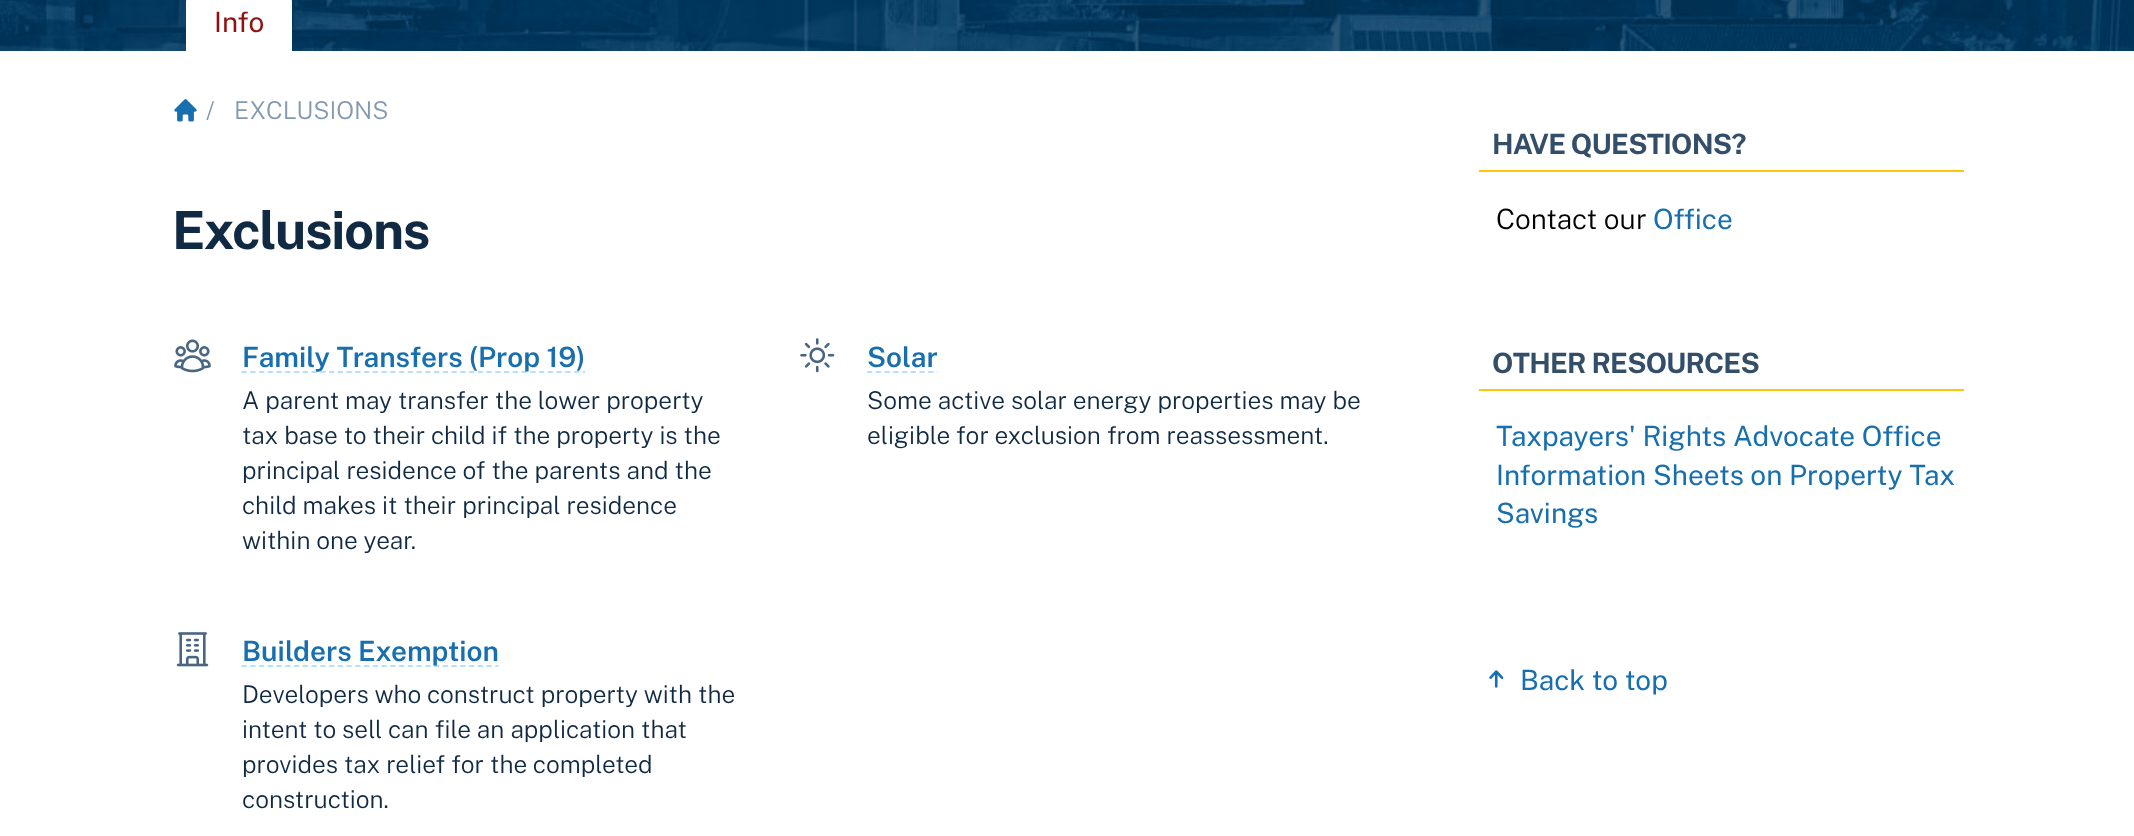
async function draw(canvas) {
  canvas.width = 2134
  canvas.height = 836
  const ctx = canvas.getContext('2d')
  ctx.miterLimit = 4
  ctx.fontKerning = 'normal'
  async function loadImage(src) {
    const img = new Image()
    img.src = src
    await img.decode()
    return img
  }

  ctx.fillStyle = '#fff'
  ctx.fillRect(0, 0, 2134, 836)
  ctx.drawImage(await loadImage('image0.png'), 0, 0, 2134, 51)
  ctx.beginPath()
  ctx.moveTo(193, -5)
  ctx.lineTo(285, -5)
  ctx.bezierCurveTo(289, -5, 292, -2, 292, 2)
  ctx.lineTo(292, 51)
  ctx.lineTo(186, 51)
  ctx.lineTo(186, 2)
  ctx.bezierCurveTo(186, -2, 189, -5, 193, -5)
  ctx.closePath()
  ctx.fill()
  ctx.font = '28px Public Sans'
  ctx.fillStyle = '#911111'
  ctx.fillText('Info', 214, 32)
  ctx.drawImage(await loadImage('image1.png'), 174, 99, 23, 23)
  ctx.font = '300 24.5px Public Sans'
  ctx.fillStyle = '#829ab1'
  ctx.fillText('/', 206, 119)
  ctx.fillText('EXCLUSIONS', 234, 119)
  ctx.letterSpacing = '-1.25px'
  ctx.font = 'bold 52.5px Public Sans'
  ctx.fillStyle = '#102a43'
  ctx.fillText('Exclusions', 172, 249)
  ctx.drawImage(await loadImage('image2.png'), 174, 339, 37, 34)
  ctx.beginPath()
  ctx.moveTo(241.5, 372)
  ctx.lineTo(585, 372)
  ctx.strokeStyle = '#b6e0fe'
  ctx.lineWidth = 1.8
  ctx.setLineDash([5.25, 3.5])
  ctx.stroke()
  ctx.letterSpacing = '0px'
  ctx.font = '600 28px Public Sans'
  ctx.fillStyle = '#186faf'
  ctx.fillText('Family Transfers (Prop 19)', 242, 367)
  ctx.font = '300 24.5px Public Sans'
  ctx.fillStyle = '#102a43'
  ctx.fillText('A parent may transfer the lower property', 242, 409)
  ctx.fillText('tax base to their child if the property is the', 242, 444)
  ctx.fillText('principal residence of the parents and the', 242, 479)
  ctx.fillText('child makes it their principal residence', 242, 514)
  ctx.fillText('within one year.', 242, 549)
  ctx.drawImage(await loadImage('image3.png'), 800, 338, 35, 35)
  ctx.font = '600 28px Public Sans'
  ctx.fillStyle = '#186faf'
  ctx.fillText('Solar', 867, 367)
  ctx.beginPath()
  ctx.moveTo(867, 372)
  ctx.lineTo(937.5, 372)
  ctx.stroke()
  ctx.font = '300 24.5px Public Sans'
  ctx.fillStyle = '#102a43'
  ctx.fillText('Some active solar energy properties may be', 867, 409)
  ctx.fillText('eligible for exclusion from reassessment.', 867, 444)
  ctx.drawImage(await loadImage('image4.png'), 176, 632, 33, 35)
  ctx.beginPath()
  ctx.moveTo(241.5, 666)
  ctx.lineTo(498.5, 666)
  ctx.stroke()
  ctx.font = '600 28px Public Sans'
  ctx.fillStyle = '#186faf'
  ctx.fillText('Builders Exemption', 242, 661)
  ctx.font = '300 24.5px Public Sans'
  ctx.fillStyle = '#102a43'
  ctx.fillText('Developers who construct property with the', 242, 703)
  ctx.fillText('intent to sell can file an application that', 242, 738)
  ctx.fillText('provides tax relief for the completed', 242, 773)
  ctx.fillText('construction.', 242, 808)
  ctx.fillStyle = '#ffc60b'
  ctx.fillRect(1479, 170, 485, 2)
  ctx.letterSpacing = '-0.75px'
  ctx.font = 'bold 28px Public Sans'
  ctx.fillStyle = '#334e68'
  ctx.fillText('HAVE QUESTIONS?', 1492, 154)
  ctx.letterSpacing = '0px'
  ctx.font = '300 28px Public Sans'
  ctx.fillStyle = '#000'
  ctx.fillText('Contact our', 1496, 229)
  ctx.font = '28px Public Sans'
  ctx.fillStyle = '#186faf'
  ctx.fillText('Office', 1653, 229)
  ctx.fillStyle = '#ffc60b'
  ctx.fillRect(1479, 389, 485, 2)
  ctx.letterSpacing = '-0.75px'
  ctx.font = 'bold 28px Public Sans'
  ctx.fillStyle = '#334e68'
  ctx.fillText('OTHER RESOURCES', 1492, 373)
  ctx.letterSpacing = '0px'
  ctx.font = '28px Public Sans'
  ctx.fillStyle = '#186faf'
  ctx.fillText('Taxpayers\' Rights Advocate Office', 1496, 446)
  ctx.fillText('Information Sheets on Property Tax', 1496, 485)
  ctx.fillText('Savings', 1496, 523)
  ctx.drawImage(await loadImage('image5.png'), 1489, 670, 15, 18)
  ctx.fillText('Back to top', 1520, 690)
}

draw(document.querySelector('canvas'))
